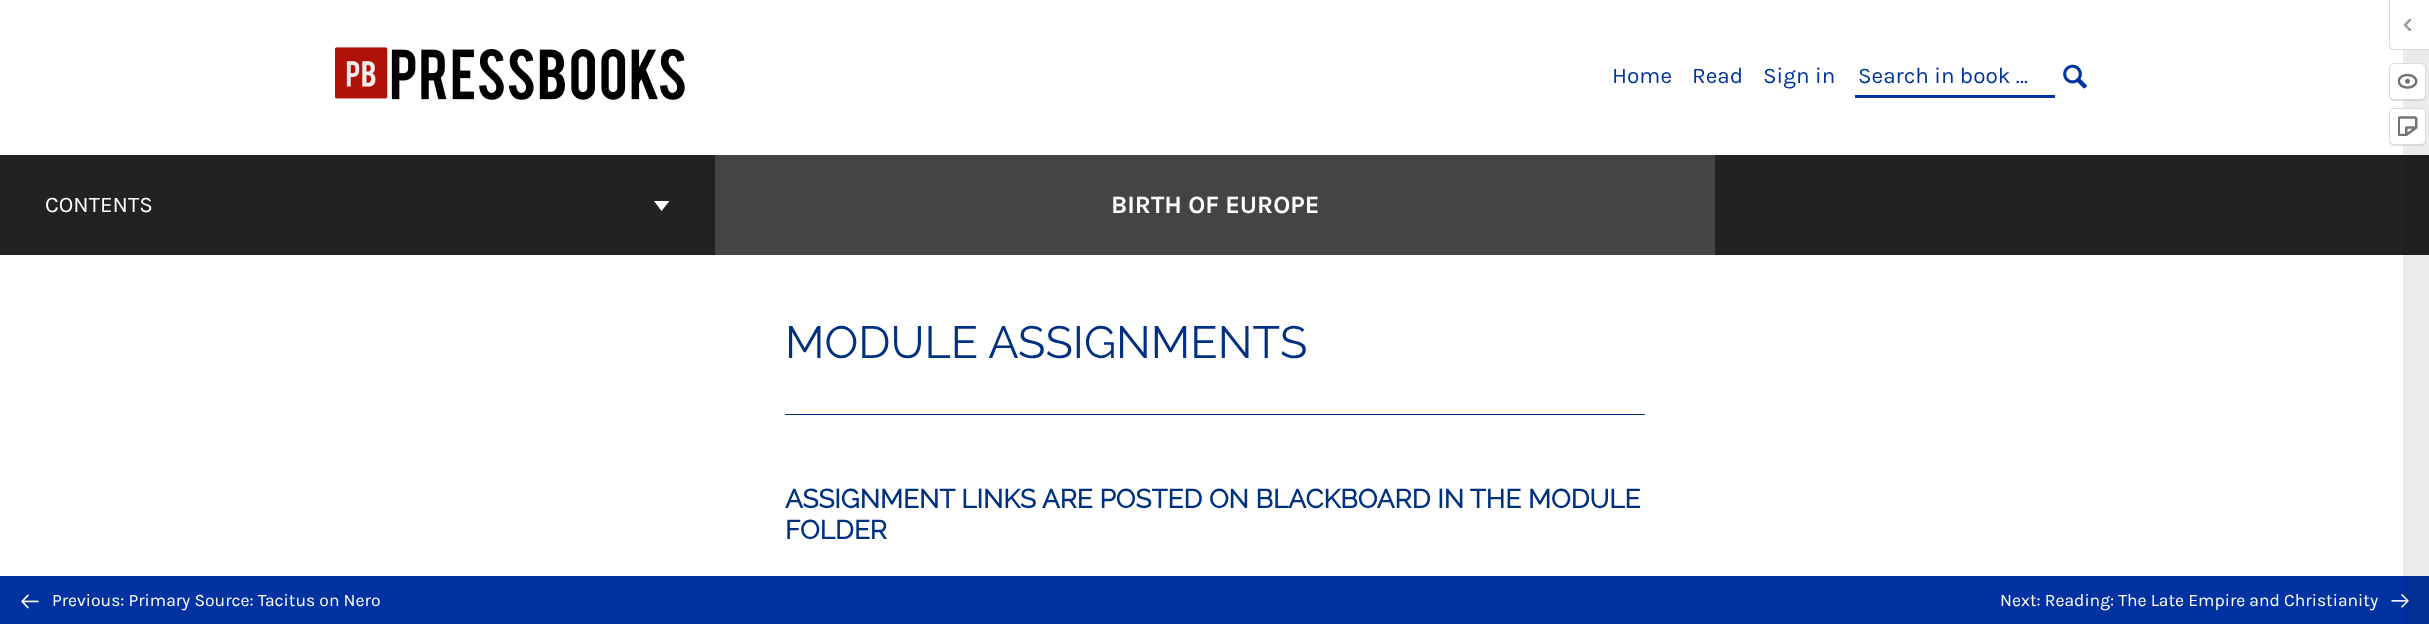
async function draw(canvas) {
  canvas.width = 2429
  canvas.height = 624
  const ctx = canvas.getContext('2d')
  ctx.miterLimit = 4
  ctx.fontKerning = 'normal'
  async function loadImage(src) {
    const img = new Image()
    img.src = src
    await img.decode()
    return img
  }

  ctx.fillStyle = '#fff'
  ctx.fillRect(0, 0, 2429, 624)
  ctx.drawImage(await loadImage('image0.png'), 335, 47, 350, 53)
  ctx.font = '22.5px Karla'
  ctx.fillStyle = '#0033a1'
  ctx.fillText('Home', 1612, 83)
  ctx.fillText('Read', 1692, 83)
  ctx.fillText('Sign in', 1763, 83)
  ctx.fillRect(1855, 95, 200, 3)
  ctx.fillText('Search in book …', 1858, 83)
  ctx.drawImage(await loadImage('image1.png'), 2063, 64, 24, 25)
  ctx.fillStyle = '#222'
  ctx.fillRect(0, 155, 2429, 100)
  ctx.fillStyle = '#fff'
  ctx.fillText('CONTENTS', 45, 212)
  ctx.beginPath()
  ctx.moveTo(661.5, 211)
  ctx.lineTo(654, 201)
  ctx.lineTo(669.5, 201)
  ctx.closePath()
  ctx.fill('evenodd')
  ctx.fillStyle = '#444'
  ctx.fillRect(715, 155, 1000, 100)
  ctx.font = 'bold 25px Karla'
  ctx.fillStyle = '#fff'
  ctx.fillText('BIRTH OF EUROPE', 1111, 213)
  ctx.fillStyle = '#003180'
  ctx.fillRect(785, 414, 860, 1)
  ctx.font = '100 45px Raleway'
  ctx.fillText('MODULE ASSIGNMENTS', 785, 358)
  ctx.font = 'bold 26.25px Raleway'
  ctx.fillText('ASSIGNMENT LINKS ARE POSTED ON BLACKBOARD IN THE MODULE', 785, 508)
  ctx.fillText('FOLDER', 785, 539)
  ctx.fillStyle = '#0033a1'
  ctx.fillRect(0, 576, 2429, 48)
  ctx.drawImage(await loadImage('image2.png'), 21, 594, 18, 15)
  ctx.font = '17.5px Karla'
  ctx.fillStyle = '#fff'
  ctx.fillText('Previous: Primary Source: Tacitus on Nero', 52, 606)
  ctx.fillText('Next: Reading: The Late Empire and Christianity', 2000, 606)
  ctx.drawImage(await loadImage('image3.png'), 2391, 594, 18, 14)
  ctx.fillStyle = '#00000014'
  ctx.fillRect(2403, 50, 26, 574)
  ctx.fillStyle = '#dbdbdb'
  ctx.beginPath()
  ctx.moveTo(2389, 0)
  ctx.lineTo(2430, 0)
  ctx.lineTo(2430, 50)
  ctx.lineTo(2394, 50)
  ctx.bezierCurveTo(2391, 50, 2389, 48, 2389, 45)
  ctx.closePath()
  ctx.moveTo(2390, 0)
  ctx.lineTo(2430, 0)
  ctx.lineTo(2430, 49)
  ctx.lineTo(2394, 49)
  ctx.bezierCurveTo(2392, 49, 2390, 47, 2390, 45)
  ctx.closePath()
  ctx.fill('evenodd')
  ctx.drawImage(await loadImage('image4.png'), 2403, 18, 9, 14)
  ctx.fillStyle = '#0000001a'
  ctx.filter = 'blur(0.5px)'
  ctx.beginPath()
  ctx.roundRect(2389, 64, 37, 37, 5)
  ctx.fill()
  ctx.filter = 'none'
  ctx.fillStyle = '#fff'
  ctx.beginPath()
  ctx.roundRect(2389.5, 63.5, 36, 36, 4.5)
  ctx.fill()
  ctx.strokeStyle = '#dbdbdb'
  ctx.stroke()
  ctx.drawImage(await loadImage('image5.png'), 2398, 73, 20, 16)
  ctx.fillStyle = '#0000001a'
  ctx.filter = 'blur(0.5px)'
  ctx.beginPath()
  ctx.roundRect(2389, 109, 37, 37, 5)
  ctx.fill()
  ctx.filter = 'none'
  ctx.fillStyle = '#fff'
  ctx.beginPath()
  ctx.roundRect(2389.5, 108.5, 36, 36, 4.5)
  ctx.fill()
  ctx.stroke()
  ctx.drawImage(await loadImage('image6.png'), 2398, 116, 20, 20)
}

draw(document.querySelector('canvas'))
